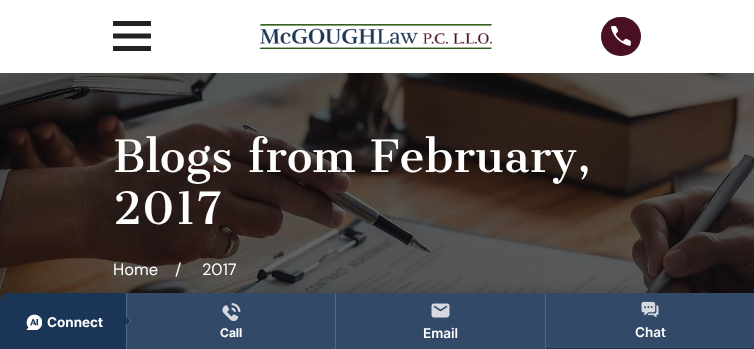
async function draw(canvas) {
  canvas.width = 754
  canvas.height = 349
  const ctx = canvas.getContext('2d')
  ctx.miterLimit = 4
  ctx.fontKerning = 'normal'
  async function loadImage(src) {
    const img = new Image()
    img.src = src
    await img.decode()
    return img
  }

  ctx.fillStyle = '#fff'
  ctx.fillRect(0, 0, 754, 349)
  ctx.fillStyle = '#222'
  ctx.beginPath()
  ctx.moveTo(113, 21)
  ctx.lineTo(113, 26)
  ctx.lineTo(151, 26)
  ctx.lineTo(151, 21)
  ctx.closePath()
  ctx.moveTo(113, 33.5)
  ctx.lineTo(113, 38.5)
  ctx.lineTo(151, 38.5)
  ctx.lineTo(151, 33.5)
  ctx.closePath()
  ctx.moveTo(113, 46)
  ctx.lineTo(113, 51)
  ctx.lineTo(151, 51)
  ctx.lineTo(151, 46)
  ctx.closePath()
  ctx.fill()
  ctx.drawImage(await loadImage('image0.png'), 260, 24, 232, 25)
  ctx.fillStyle = '#491021'
  ctx.beginPath()
  ctx.roundRect(601, 17, 40, 39, 19.5)
  ctx.fill()
  ctx.drawImage(await loadImage('image1.png'), 611, 26, 20, 20)
  ctx.drawImage(await loadImage('image2.png'), 0, 73, 754, 228)
  ctx.font = '43.5px Cantata One'
  ctx.fillStyle = '#fff'
  ctx.fillText('Blogs from February,', 113, 172)
  ctx.fillText('2017', 113, 224)
  ctx.font = '16.5px DM Sans'
  ctx.fillText('Home', 113, 275)
  ctx.fillText('/', 175, 275)
  ctx.fillText('2017', 202, 275)
  ctx.fillStyle = '#0000001a'
  ctx.filter = 'blur(5px)'
  ctx.beginPath()
  ctx.roundRect(-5, 288, 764, 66, 13)
  ctx.fill()
  ctx.filter = 'none'
  ctx.fillStyle = '#1b3556'
  ctx.beginPath()
  ctx.roundRect(0, 293, 754, 56, [8, 0, 0, 0])
  ctx.fill()
  ctx.fillStyle = '#546880'
  ctx.fillRect(126, 293, 1, 56)
  ctx.drawImage(await loadImage('image3.png'), 26, 314, 16, 16)
  ctx.font = 'bold 13.5px Inter'
  ctx.fillStyle = '#fff'
  ctx.fillText('Connect', 47, 327)
  ctx.fillStyle = '#324967'
  ctx.fillRect(127, 293, 208, 56)
  ctx.fillStyle = '#1b3556'
  ctx.beginPath()
  ctx.moveTo(127.5, 317)
  ctx.lineTo(131.5, 321)
  ctx.lineTo(127.5, 325)
  ctx.lineTo(123, 321)
  ctx.closePath()
  ctx.fill()
  ctx.fillStyle = '#566982'
  ctx.beginPath()
  ctx.moveTo(127.5, 317)
  ctx.lineTo(131.5, 321)
  ctx.lineTo(130, 321)
  ctx.lineTo(127.5, 318)
  ctx.closePath()
  ctx.moveTo(131.5, 321)
  ctx.lineTo(127.5, 325)
  ctx.lineTo(127.5, 324)
  ctx.lineTo(130, 321)
  ctx.closePath()
  ctx.fill()
  ctx.fillStyle = '#546880'
  ctx.fillRect(335, 293, 1, 56)
  ctx.drawImage(await loadImage('image4.png'), 222, 303, 19, 18)
  ctx.font = 'bold 12px Inter'
  ctx.fillStyle = '#fff'
  ctx.fillText('Call', 220, 337)
  ctx.fillStyle = '#546880'
  ctx.fillRect(545, 293, 1, 56)
  ctx.fillStyle = '#324967'
  ctx.fillRect(336, 293, 209, 56)
  ctx.drawImage(await loadImage('image5.png'), 431, 303, 19, 15)
  ctx.font = '600 13.5px Inter'
  ctx.fillStyle = '#fff'
  ctx.fillText('Email', 423, 338)
  ctx.fillStyle = '#324967'
  ctx.fillRect(546, 293, 208, 55)
  ctx.drawImage(await loadImage('image6.png'), 641, 301, 18, 17)
  ctx.fillStyle = '#fff'
  ctx.fillText('Chat', 635, 337)
}

draw(document.querySelector('canvas'))
